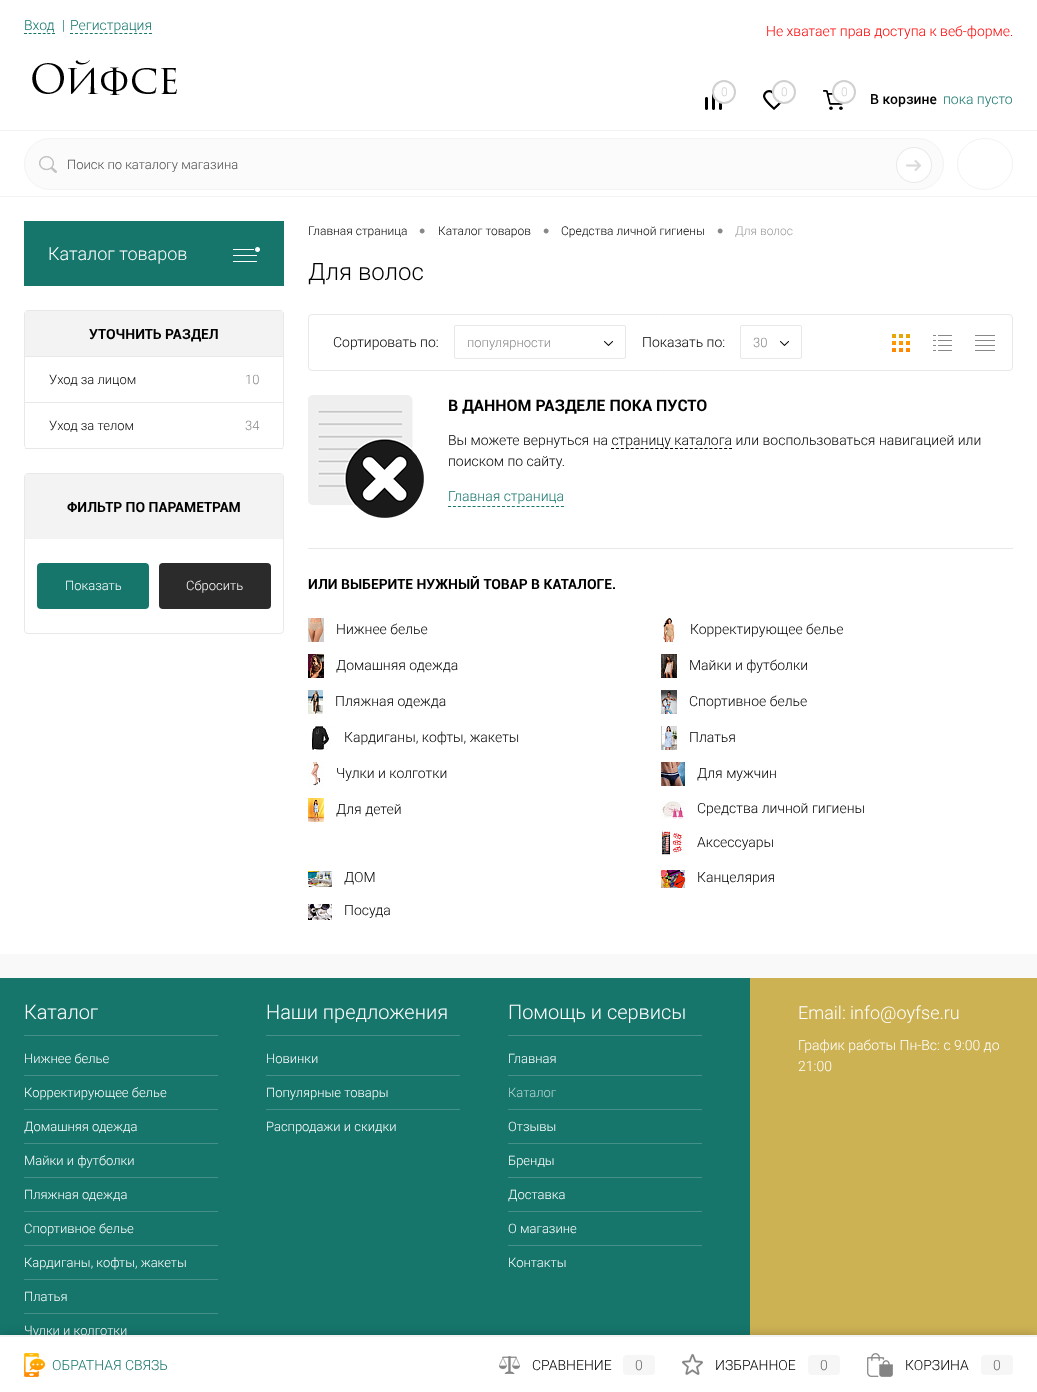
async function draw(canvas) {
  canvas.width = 1037
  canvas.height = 1392
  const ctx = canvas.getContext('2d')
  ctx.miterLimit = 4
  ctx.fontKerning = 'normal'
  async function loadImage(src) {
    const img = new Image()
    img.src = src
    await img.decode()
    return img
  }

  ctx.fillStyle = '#fff'
  ctx.fillRect(0, 0, 1037, 1392)
  ctx.fillStyle = '#f3f3f3'
  ctx.fillRect(0, 130, 1037, 1)
  ctx.font = '300 14px Roboto'
  ctx.fillStyle = '#16766c'
  ctx.fillText('Вход', 24, 30)
  ctx.beginPath()
  ctx.moveTo(24, 33.5)
  ctx.lineTo(55, 33.5)
  ctx.strokeStyle = '#16766c'
  ctx.setLineDash([3, 1.67])
  ctx.stroke()
  ctx.fillText('|', 62, 30)
  ctx.fillText('Регистрация', 70, 30)
  ctx.beginPath()
  ctx.moveTo(70, 33.5)
  ctx.lineTo(152, 33.5)
  ctx.setLineDash([3, 1.94])
  ctx.stroke()
  ctx.fillStyle = '#fbfbfb'
  ctx.beginPath()
  ctx.roundRect(24.5, 138.5, 919, 51, 25.5)
  ctx.fill()
  ctx.strokeStyle = '#f3f3f3'
  ctx.setLineDash([])
  ctx.stroke()
  ctx.drawImage(await loadImage('image0.png'), 39, 156, 18, 17)
  ctx.font = '300 13px Roboto'
  ctx.fillStyle = '#4b4b4b'
  ctx.fillText('Поиск по каталогу магазина', 67, 169)
  ctx.drawImage(await loadImage('image1.png'), 896, 147, 36, 36)
  ctx.font = '300 14px Roboto'
  ctx.fillStyle = '#f00'
  ctx.fillText('Не хватает прав доступа к веб-форме.', 766, 36)
  ctx.drawImage(await loadImage('image2.png'), 705, 93, 17, 17)
  ctx.fillStyle = '#fff'
  ctx.beginPath()
  ctx.arc(724, 92, 11, 0, 2 * Math.PI)
  ctx.fill()
  ctx.strokeStyle = '#d1d1d1'
  ctx.lineWidth = 2
  ctx.stroke()
  ctx.font = '300 12px Roboto'
  ctx.fillStyle = '#d1d1d1'
  ctx.fillText('0', 721, 96)
  ctx.drawImage(await loadImage('image3.png'), 763, 90, 18, 20)
  ctx.fillStyle = '#fff'
  ctx.beginPath()
  ctx.arc(784, 92, 11, 0, 2 * Math.PI)
  ctx.fill()
  ctx.stroke()
  ctx.fillStyle = '#d1d1d1'
  ctx.fillText('0', 781, 96)
  ctx.drawImage(await loadImage('image4.png'), 823, 90, 20, 20)
  ctx.fillStyle = '#fff'
  ctx.beginPath()
  ctx.arc(844, 92, 11, 0, 2 * Math.PI)
  ctx.fill()
  ctx.stroke()
  ctx.fillStyle = '#d1d1d1'
  ctx.fillText('0', 841, 96)
  ctx.font = '500 14px Roboto'
  ctx.fillStyle = '#000'
  ctx.fillText('В корзине', 870, 104)
  ctx.font = '300 14px Roboto'
  ctx.fillStyle = '#16766c'
  ctx.fillText('пока пусто', 943, 104)
  ctx.drawImage(await loadImage('image5.png'), 32, 60, 145, 35)
  ctx.fillStyle = '#f3f3f3'
  ctx.fillRect(0, 196, 1037, 1)
  ctx.beginPath()
  ctx.moveTo(985, 138.5)
  ctx.bezierCurveTo(1000, 138.5, 1012.5, 150, 1012.5, 164)
  ctx.bezierCurveTo(1012.5, 178, 1000, 189.5, 985, 189.5)
  ctx.bezierCurveTo(970, 189.5, 957.5, 178, 957.5, 164)
  ctx.bezierCurveTo(957.5, 150, 970, 138.5, 985, 138.5)
  ctx.closePath()
  ctx.strokeStyle = '#f3f3f3'
  ctx.lineWidth = 1
  ctx.stroke()
  ctx.fillStyle = '#16766c'
  ctx.fillRect(24, 221, 260, 65)
  ctx.font = '300 18px Roboto'
  ctx.fillStyle = '#fff'
  ctx.fillText('Каталог товаров', 48, 260)
  ctx.drawImage(await loadImage('image6.png'), 233, 247, 27, 15)
  ctx.fillStyle = '#e7e8ea'
  ctx.beginPath()
  ctx.moveTo(28, 310)
  ctx.lineTo(280, 310)
  ctx.bezierCurveTo(282, 310, 284, 312, 284, 314)
  ctx.lineTo(284, 445)
  ctx.bezierCurveTo(284, 447, 282, 449, 280, 449)
  ctx.lineTo(28, 449)
  ctx.bezierCurveTo(26, 449, 24, 447, 24, 445)
  ctx.lineTo(24, 314)
  ctx.bezierCurveTo(24, 312, 26, 310, 28, 310)
  ctx.closePath()
  ctx.moveTo(28, 311)
  ctx.lineTo(280, 311)
  ctx.bezierCurveTo(282, 311, 283, 312, 283, 314)
  ctx.lineTo(283, 445)
  ctx.bezierCurveTo(283, 447, 282, 449, 280, 449)
  ctx.lineTo(28, 449)
  ctx.bezierCurveTo(26, 449, 25, 447, 25, 445)
  ctx.lineTo(25, 314)
  ctx.bezierCurveTo(25, 312, 26, 311, 28, 311)
  ctx.closePath()
  ctx.fill('evenodd')
  ctx.fillStyle = '#f3f3f3'
  ctx.fillRect(25, 311, 258, 45)
  ctx.fillStyle = '#e7e8ea'
  ctx.fillRect(25, 356, 258, 1)
  ctx.font = 'bold 14px Roboto'
  ctx.fillStyle = '#000'
  ctx.fillText('УТОЧНИТЬ РАЗДЕЛ', 89, 339)
  ctx.fillStyle = '#e7e8ea'
  ctx.fillRect(25, 402, 258, 1)
  ctx.font = '300 13px Roboto'
  ctx.fillStyle = '#000'
  ctx.fillText('Уход за лицом', 49, 384)
  ctx.fillStyle = '#888'
  ctx.fillText('10', 245, 384)
  ctx.fillStyle = '#e7e8ea'
  ctx.fillRect(25, 448, 258, 1)
  ctx.fillStyle = '#000'
  ctx.fillText('Уход за телом', 49, 430)
  ctx.fillStyle = '#888'
  ctx.fillText('34', 245, 430)
  ctx.beginPath()
  ctx.roundRect(24.5, 473.5, 259, 160, 3.5)
  ctx.strokeStyle = '#e7e8ea'
  ctx.stroke()
  ctx.fillStyle = '#f3f3f3'
  ctx.fillRect(25, 474, 258, 65)
  ctx.font = 'bold 14px Roboto'
  ctx.fillStyle = '#000'
  ctx.fillText('ФИЛЬТР ПО ПАРАМЕТРАМ', 67, 512)
  ctx.fillStyle = '#16766c'
  ctx.beginPath()
  ctx.roundRect(37, 563, 112, 46, 4)
  ctx.fill()
  ctx.font = '300 13px Roboto'
  ctx.fillStyle = '#fff'
  ctx.fillText('Показать', 65, 590)
  ctx.fillStyle = '#2b2b2b'
  ctx.beginPath()
  ctx.roundRect(159, 563, 112, 46, 4)
  ctx.fill()
  ctx.fillStyle = '#fff'
  ctx.fillText('Сбросить', 186, 590)
  ctx.font = '300 12px Roboto'
  ctx.fillStyle = '#000'
  ctx.fillText('Главная страница', 308, 235)
  ctx.font = '18px Liberation Sans'
  ctx.fillStyle = '#888'
  ctx.fillText('•', 419, 237)
  ctx.font = '300 12px Roboto'
  ctx.fillStyle = '#000'
  ctx.fillText('Каталог товаров', 438, 235)
  ctx.font = '18px Liberation Sans'
  ctx.fillStyle = '#888'
  ctx.fillText('•', 543, 237)
  ctx.font = '300 12px Roboto'
  ctx.fillStyle = '#000'
  ctx.fillText('Средства личной гигиены', 561, 235)
  ctx.font = '18px Liberation Sans'
  ctx.fillStyle = '#888'
  ctx.fillText('•', 717, 237)
  ctx.font = '300 12px Roboto'
  ctx.fillStyle = '#999'
  ctx.fillText('Для волос', 735, 235)
  ctx.font = '300 24px Roboto'
  ctx.fillStyle = '#000'
  ctx.fillText('Для волос', 308, 280)
  ctx.beginPath()
  ctx.roundRect(308.5, 314.5, 704, 56, 3.5)
  ctx.stroke()
  ctx.font = '300 14px Roboto'
  ctx.fillText('Сортировать по:', 333, 347)
  ctx.beginPath()
  ctx.roundRect(454.5, 325.5, 171, 33, 1.5)
  ctx.stroke()
  ctx.font = '300 13px Roboto'
  ctx.fillStyle = '#888'
  ctx.fillText('популярности', 467, 347)
  ctx.drawImage(await loadImage('image7.png'), 604, 341, 9, 5)
  ctx.font = '300 14px Roboto'
  ctx.fillStyle = '#000'
  ctx.fillText('Показать по:', 642, 347)
  ctx.beginPath()
  ctx.roundRect(740.5, 325.5, 61, 33, 1.5)
  ctx.stroke()
  ctx.font = '300 13px Roboto'
  ctx.fillStyle = '#888'
  ctx.fillText('30', 753, 347)
  ctx.drawImage(await loadImage('image7.png'), 780, 341, 9, 5)
  ctx.drawImage(await loadImage('image8.png'), 892, 334, 18, 18)
  ctx.drawImage(await loadImage('image9.png'), 933, 335, 19, 16)
  ctx.drawImage(await loadImage('image10.png'), 975, 335, 20, 16)
  ctx.fillStyle = '#e7e8ea'
  ctx.fillRect(308, 548, 705, 1)
  ctx.drawImage(await loadImage('image11.png'), 308, 395, 116, 123)
  ctx.font = 'bold 16px Roboto'
  ctx.fillStyle = '#000'
  ctx.fillText('В ДАННОМ РАЗДЕЛЕ ПОКА ПУСТО', 448, 411)
  ctx.font = '300 14px Roboto'
  ctx.fillText('Вы можете вернуться на страницу каталога или воспользоваться навигацией или', 448, 445)
  ctx.beginPath()
  ctx.moveTo(611, 448.5)
  ctx.lineTo(732, 448.5)
  ctx.strokeStyle = '#000'
  ctx.setLineDash([3, 1.92])
  ctx.stroke()
  ctx.fillText('поиском по сайту.', 448, 466)
  ctx.fillStyle = '#16766c'
  ctx.fillText('Главная страница', 448, 501)
  ctx.beginPath()
  ctx.moveTo(448, 506.5)
  ctx.lineTo(564, 506.5)
  ctx.strokeStyle = '#16766c'
  ctx.setLineDash([3, 1.91])
  ctx.stroke()
  ctx.font = 'bold 14px Roboto'
  ctx.fillStyle = '#000'
  ctx.fillText('ИЛИ ВЫБЕРИТЕ НУЖНЫЙ ТОВАР В КАТАЛОГЕ.', 308, 589)
  ctx.drawImage(await loadImage('image12.png'), 308, 618, 16, 24)
  ctx.font = '300 14px Roboto'
  ctx.fillText('Нижнее белье', 336, 634)
  ctx.drawImage(await loadImage('image13.png'), 661, 618, 16, 24)
  ctx.fillText('Корректирующее белье', 690, 634)
  ctx.drawImage(await loadImage('image14.png'), 308, 654, 16, 24)
  ctx.fillText('Домашняя одежда', 336, 670)
  ctx.drawImage(await loadImage('image15.png'), 661, 654, 16, 24)
  ctx.fillText('Майки и футболки', 689, 670)
  ctx.drawImage(await loadImage('image16.png'), 308, 690, 15, 24)
  ctx.fillText('Пляжная одежда', 335, 706)
  ctx.drawImage(await loadImage('image17.png'), 661, 690, 16, 24)
  ctx.fillText('Спортивное белье', 689, 706)
  ctx.drawImage(await loadImage('image18.png'), 311, 726, 20, 24)
  ctx.fillText('Кардиганы, кофты, жакеты', 344, 742)
  ctx.drawImage(await loadImage('image19.png'), 661, 726, 16, 24)
  ctx.fillText('Платья', 689, 742)
  ctx.drawImage(await loadImage('image20.png'), 308, 762, 16, 24)
  ctx.fillText('Чулки и колготки', 336, 778)
  ctx.drawImage(await loadImage('image21.png'), 661, 762, 24, 24)
  ctx.fillText('Для мужчин', 697, 778)
  ctx.drawImage(await loadImage('image22.png'), 308, 798, 16, 24)
  ctx.fillText('Для детей', 336, 814)
  ctx.drawImage(await loadImage('image23.png'), 661, 800, 24, 19)
  ctx.fillText('Средства личной гигиены', 697, 813)
  ctx.drawImage(await loadImage('image24.png'), 661, 831, 24, 24)
  ctx.fillText('Аксессуары', 697, 847)
  ctx.drawImage(await loadImage('image25.png'), 308, 871, 24, 16)
  ctx.fillText('ДОМ', 344, 882)
  ctx.drawImage(await loadImage('image26.png'), 661, 870, 24, 18)
  ctx.fillText('Канцелярия', 697, 882)
  ctx.drawImage(await loadImage('image27.png'), 308, 904, 24, 16)
  ctx.fillText('Посуда', 344, 915)
  ctx.fillStyle = '#f9f9f9'
  ctx.fillRect(0, 954, 1037, 24)
  ctx.fillStyle = '#16766c'
  ctx.fillRect(0, 978, 750, 357)
  ctx.fillStyle = '#459189'
  ctx.fillRect(24, 1035, 194, 1)
  ctx.font = '300 20px Roboto'
  ctx.fillStyle = '#fff'
  ctx.fillText('Каталог', 24, 1019)
  ctx.font = '300 13px Roboto'
  ctx.fillText('Нижнее белье', 24, 1063)
  ctx.fillStyle = '#459189'
  ctx.fillRect(24, 1075, 194, 1)
  ctx.fillStyle = '#fff'
  ctx.fillText('Корректирующее белье', 24, 1097)
  ctx.fillStyle = '#459189'
  ctx.fillRect(24, 1109, 194, 1)
  ctx.fillStyle = '#fff'
  ctx.fillText('Домашняя одежда', 24, 1131)
  ctx.fillStyle = '#459189'
  ctx.fillRect(24, 1143, 194, 1)
  ctx.fillStyle = '#fff'
  ctx.fillText('Майки и футболки', 24, 1165)
  ctx.fillStyle = '#459189'
  ctx.fillRect(24, 1177, 194, 1)
  ctx.fillStyle = '#fff'
  ctx.fillText('Пляжная одежда', 24, 1199)
  ctx.fillStyle = '#459189'
  ctx.fillRect(24, 1211, 194, 1)
  ctx.fillStyle = '#fff'
  ctx.fillText('Спортивное белье', 24, 1233)
  ctx.fillStyle = '#459189'
  ctx.fillRect(24, 1245, 194, 1)
  ctx.fillStyle = '#fff'
  ctx.fillText('Кардиганы, кофты, жакеты', 24, 1267)
  ctx.fillStyle = '#459189'
  ctx.fillRect(24, 1279, 194, 1)
  ctx.fillStyle = '#fff'
  ctx.fillText('Платья', 24, 1301)
  ctx.fillStyle = '#459189'
  ctx.fillRect(24, 1313, 194, 1)
  ctx.fillStyle = '#fff'
  ctx.fillText('Чулки и колготки', 24, 1335)
  ctx.fillStyle = '#459189'
  ctx.fillRect(266, 1035, 194, 1)
  ctx.font = '300 20px Roboto'
  ctx.fillStyle = '#fff'
  ctx.fillText('Наши предложения', 266, 1019)
  ctx.font = '300 13px Roboto'
  ctx.fillText('Новинки', 266, 1063)
  ctx.fillStyle = '#459189'
  ctx.fillRect(266, 1075, 194, 1)
  ctx.fillStyle = '#fff'
  ctx.fillText('Популярные товары', 266, 1097)
  ctx.fillStyle = '#459189'
  ctx.fillRect(266, 1109, 194, 1)
  ctx.fillStyle = '#fff'
  ctx.fillText('Распродажи и скидки', 266, 1131)
  ctx.fillStyle = '#459189'
  ctx.fillRect(508, 1035, 194, 1)
  ctx.font = '300 20px Roboto'
  ctx.fillStyle = '#fff'
  ctx.fillText('Помощь и сервисы', 508, 1019)
  ctx.font = '300 13px Roboto'
  ctx.fillText('Главная', 508, 1063)
  ctx.fillStyle = '#459189'
  ctx.fillRect(508, 1075, 194, 1)
  ctx.fillStyle = '#b9d6d3'
  ctx.fillText('Каталог', 508, 1097)
  ctx.fillStyle = '#459189'
  ctx.fillRect(508, 1109, 194, 1)
  ctx.fillStyle = '#fff'
  ctx.fillText('Отзывы', 508, 1131)
  ctx.fillStyle = '#459189'
  ctx.fillRect(508, 1143, 194, 1)
  ctx.fillStyle = '#fff'
  ctx.fillText('Бренды', 508, 1165)
  ctx.fillStyle = '#459189'
  ctx.fillRect(508, 1177, 194, 1)
  ctx.fillStyle = '#fff'
  ctx.fillText('Доставка', 508, 1199)
  ctx.fillStyle = '#459189'
  ctx.fillRect(508, 1211, 194, 1)
  ctx.fillStyle = '#fff'
  ctx.fillText('О магазине', 508, 1233)
  ctx.fillStyle = '#459189'
  ctx.fillRect(508, 1245, 194, 1)
  ctx.fillStyle = '#fff'
  ctx.fillText('Контакты', 508, 1267)
  ctx.fillStyle = '#cdb254'
  ctx.fillRect(750, 978, 287, 357)
  ctx.font = '300 18px Roboto'
  ctx.fillStyle = '#fff'
  ctx.fillText('Email: info@oyfse.ru', 798, 1019)
  ctx.font = '300 14px Roboto'
  ctx.fillText('График работы Пн-Вс: с 9:00 до', 798, 1050)
  ctx.fillText('21:00', 798, 1071)
  ctx.fillStyle = '#00000040'
  ctx.filter = 'blur(6px)'
  ctx.beginPath()
  ctx.rect(1, 1336, 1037, 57)
  ctx.fill()
  ctx.filter = 'none'
  ctx.fillStyle = '#fff'
  ctx.fillRect(0, 1337, 1037, 55)
  ctx.fillStyle = '#f3f3f3'
  ctx.fillRect(0, 1335, 1037, 2)
  ctx.drawImage(await loadImage('image28.png'), 24, 1353, 21, 24)
  ctx.fillStyle = '#16766c'
  ctx.fillText('ОБРАТНАЯ СВЯЗЬ', 52, 1370)
  ctx.drawImage(await loadImage('image29.png'), 499, 1356, 21, 18)
  ctx.fillStyle = '#000'
  ctx.fillText('СРАВНЕНИЕ', 532, 1370)
  ctx.fillStyle = '#f6f6f6'
  ctx.beginPath()
  ctx.roundRect(623, 1355, 32, 20, 4)
  ctx.fill()
  ctx.fillStyle = '#666'
  ctx.fillText('0', 635, 1370)
  ctx.drawImage(await loadImage('image30.png'), 682, 1354, 21, 21)
  ctx.fillStyle = '#000'
  ctx.fillText('ИЗБРАННОЕ', 715, 1370)
  ctx.fillStyle = '#f6f6f6'
  ctx.beginPath()
  ctx.roundRect(808, 1355, 32, 20, 4)
  ctx.fill()
  ctx.fillStyle = '#666'
  ctx.fillText('0', 820, 1370)
  ctx.drawImage(await loadImage('image31.png'), 867, 1353, 26, 24)
  ctx.fillStyle = '#000'
  ctx.fillText('КОРЗИНА', 905, 1370)
  ctx.fillStyle = '#f6f6f6'
  ctx.beginPath()
  ctx.roundRect(981, 1355, 32, 20, 4)
  ctx.fill()
  ctx.fillStyle = '#666'
  ctx.fillText('0', 993, 1370)
}

draw(document.querySelector('canvas'))
